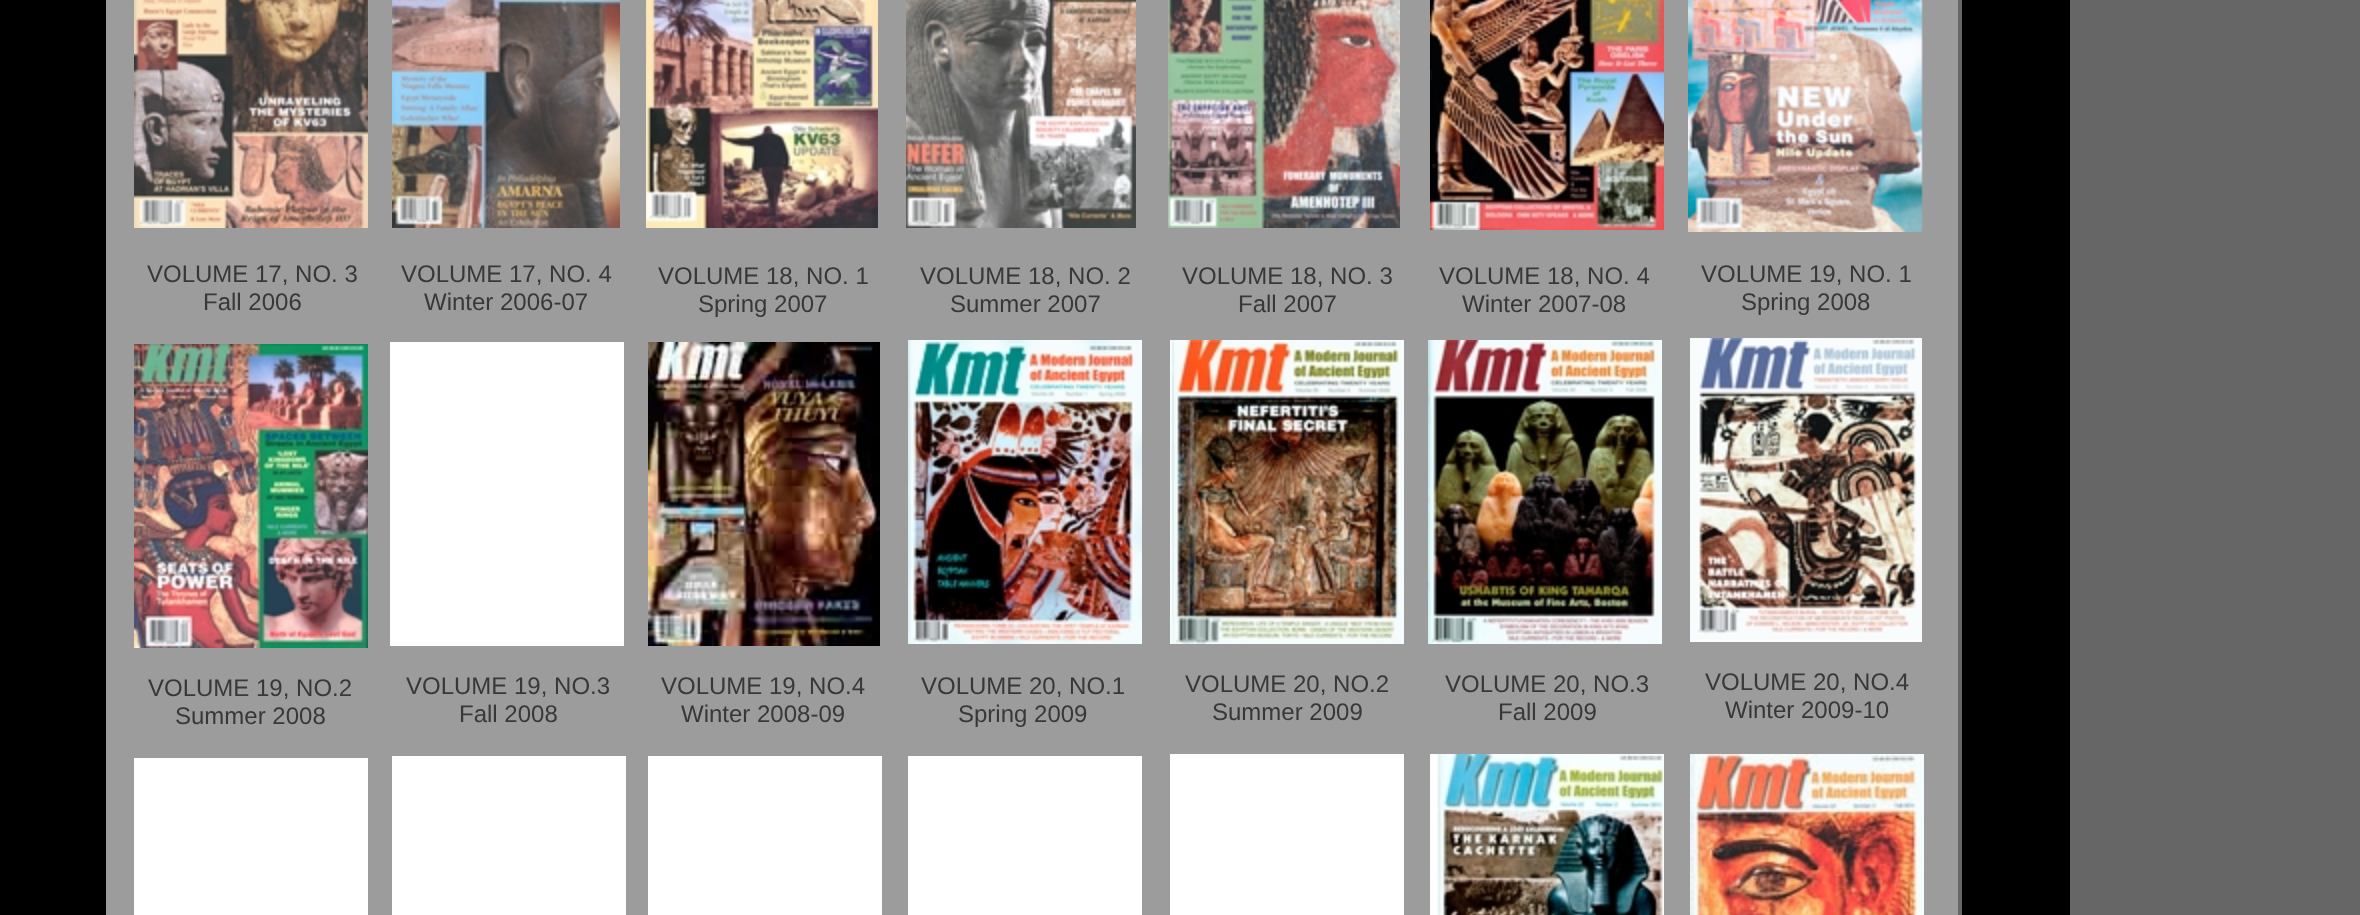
async function draw(canvas) {
  canvas.width = 2360
  canvas.height = 915
  const ctx = canvas.getContext('2d')
  ctx.miterLimit = 4
  ctx.fontKerning = 'normal'
  async function loadImage(src) {
    const img = new Image()
    img.src = src
    await img.decode()
    return img
  }

  ctx.fillStyle = '#666'
  ctx.fillRect(0, 0, 2360, 915)
  ctx.fillStyle = '#000'
  ctx.fillRect(0, 0, 106, 915)
  ctx.fillStyle = '#9c9c9c'
  ctx.fillRect(106, 0, 1852, 915)
  ctx.drawImage(await loadImage('image0.png'), 134, 0, 234, 228)
  ctx.drawImage(await loadImage('image1.png'), 392, 0, 228, 228)
  ctx.drawImage(await loadImage('image2.png'), 646, 0, 232, 228)
  ctx.drawImage(await loadImage('image3.png'), 906, 0, 230, 228)
  ctx.drawImage(await loadImage('image4.png'), 1168, 0, 232, 228)
  ctx.drawImage(await loadImage('image5.png'), 1430, 0, 234, 230)
  ctx.drawImage(await loadImage('image6.png'), 1688, 0, 235, 232)
  ctx.font = '24px Liberation Sans'
  ctx.fillStyle = '#393838'
  ctx.fillText('VOLUME 17, NO. 3', 147, 282)
  ctx.fillText('Fall 2006', 203, 310)
  ctx.fillText('VOLUME 17, NO. 4', 401, 282)
  ctx.fillText('Winter 2006-07', 424, 310)
  ctx.fillText('VOLUME 19, NO. 1', 1701, 282)
  ctx.fillText('Spring 2008', 1741, 310)
  ctx.fillText('VOLUME 18, NO. 1', 658, 284)
  ctx.fillText('Spring 2007', 698, 312)
  ctx.fillText('VOLUME 18, NO. 2', 920, 284)
  ctx.fillText('Summer 2007', 950, 312)
  ctx.fillText('VOLUME 18, NO. 3', 1182, 284)
  ctx.fillText('Fall 2007', 1238, 312)
  ctx.fillText('VOLUME 18, NO. 4', 1439, 284)
  ctx.fillText('Winter 2007-08', 1462, 312)
  ctx.drawImage(await loadImage('image7.png'), 134, 344, 234, 304)
  ctx.fillStyle = '#fff'
  ctx.fillRect(390, 342, 234, 304)
  ctx.drawImage(await loadImage('image8.png'), 648, 342, 232, 304)
  ctx.drawImage(await loadImage('image9.png'), 908, 340, 234, 304)
  ctx.drawImage(await loadImage('image10.png'), 1170, 340, 234, 304)
  ctx.drawImage(await loadImage('image11.png'), 1428, 340, 234, 304)
  ctx.fillRect(1690, 640, 232, 2)
  ctx.drawImage(await loadImage('image12.png'), 1690, 338, 232, 302)
  ctx.fillStyle = '#393838'
  ctx.fillText('VOLUME 19, NO.2', 148, 696)
  ctx.fillText('Summer 2008', 175, 724)
  ctx.fillText('VOLUME 19, NO.3', 406, 694)
  ctx.fillText('Fall 2008', 459, 722)
  ctx.fillText('VOLUME 19, NO.4', 661, 694)
  ctx.fillText('Winter 2008-09', 681, 722)
  ctx.fillText('VOLUME 20, NO.1', 921, 694)
  ctx.fillText('Spring 2009', 958, 722)
  ctx.fillText('VOLUME 20, NO.2', 1185, 692)
  ctx.fillText('Summer 2009', 1212, 720)
  ctx.fillText('VOLUME 20, NO.3', 1445, 692)
  ctx.fillText('Fall 2009', 1498, 720)
  ctx.fillText('VOLUME 20, NO.4', 1705, 690)
  ctx.fillText('Winter 2009-10', 1725, 718)
  ctx.fillStyle = '#fff'
  ctx.fillRect(134, 758, 234, 157)
  ctx.fillRect(392, 756, 234, 159)
  ctx.fillRect(648, 756, 234, 159)
  ctx.fillRect(908, 756, 234, 159)
  ctx.fillRect(1170, 754, 234, 161)
  ctx.fillRect(1430, 754, 6, 161)
  ctx.drawImage(await loadImage('image13.png'), 1436, 754, 228, 161)
  ctx.drawImage(await loadImage('image14.png'), 1690, 754, 234, 161)
  ctx.fillStyle = '#000'
  ctx.fillRect(1962, 0, 108, 915)
}

draw(document.querySelector('canvas'))
